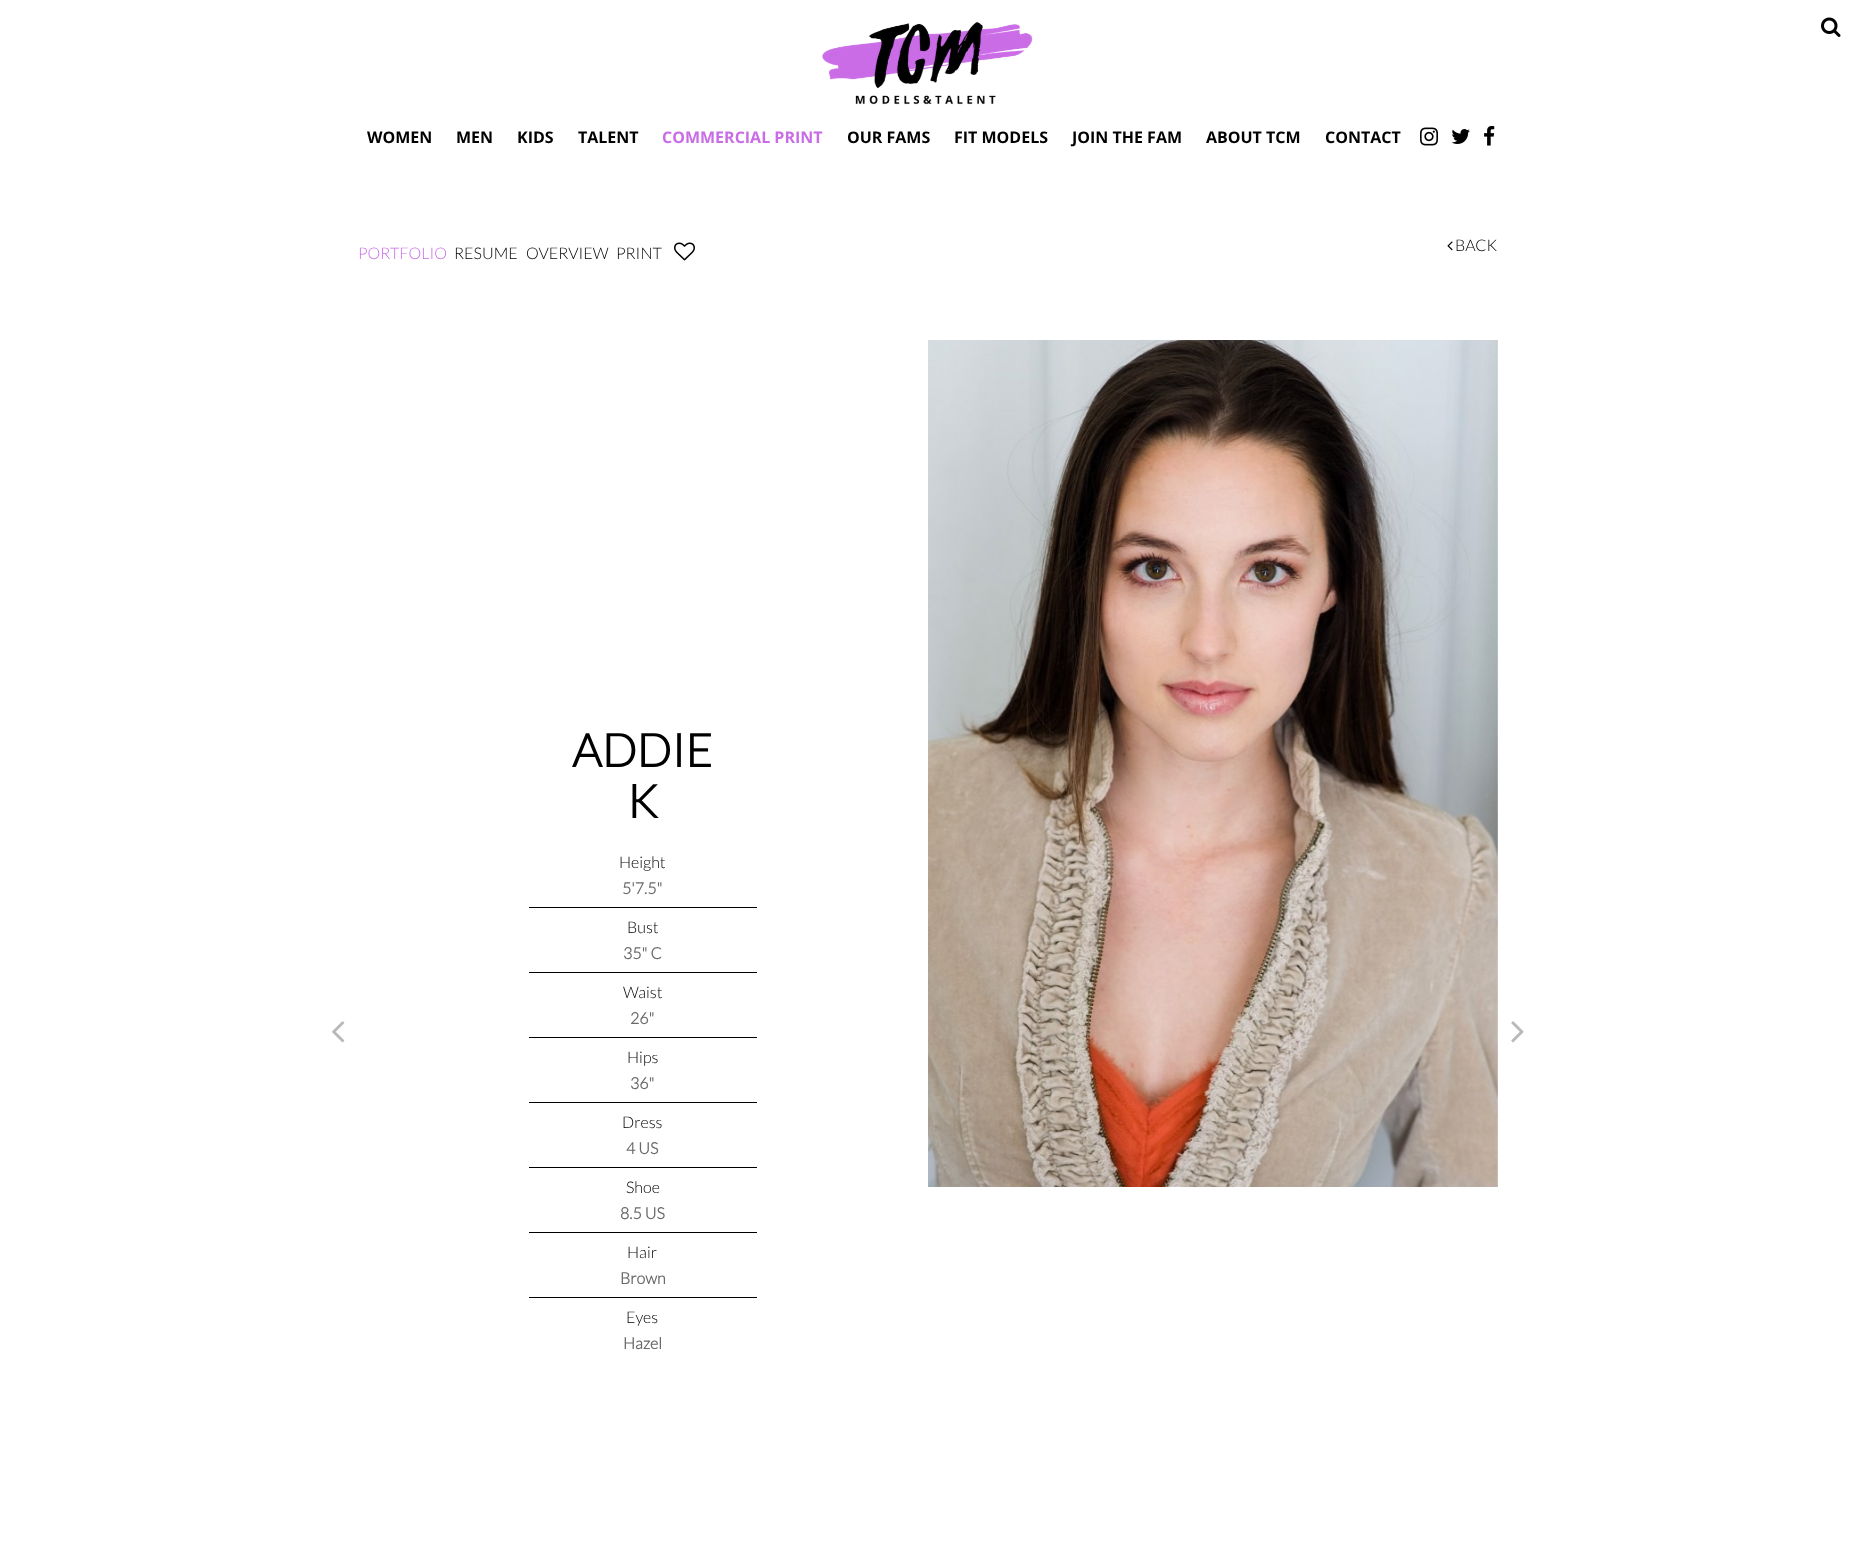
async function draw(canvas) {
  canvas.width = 1855
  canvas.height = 1545
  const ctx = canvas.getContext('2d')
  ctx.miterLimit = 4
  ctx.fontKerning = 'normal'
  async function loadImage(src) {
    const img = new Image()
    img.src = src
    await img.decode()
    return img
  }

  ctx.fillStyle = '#fff'
  ctx.fillRect(0, 0, 1855, 1545)
  ctx.drawImage(await loadImage('image0.png'), 1821, 17, 20, 20)
  ctx.drawImage(await loadImage('image1.png'), 822, 22, 211, 83)
  ctx.font = 'bold 16px Open Sans'
  ctx.fillStyle = '#000'
  ctx.fillText('WOMEN', 367, 143)
  ctx.fillText('MEN', 456, 143)
  ctx.fillText('KIDS', 517, 143)
  ctx.fillText('TALENT', 578, 143)
  ctx.fillStyle = '#ca6ce6'
  ctx.fillText('COMMERCIAL PRINT', 662, 143)
  ctx.fillStyle = '#000'
  ctx.fillText('OUR FAMS', 847, 143)
  ctx.fillText('FIT MODELS', 954, 143)
  ctx.fillText('JOIN THE FAM', 1072, 143)
  ctx.fillText('ABOUT TCM', 1206, 143)
  ctx.fillText('CONTACT', 1325, 143)
  ctx.drawImage(await loadImage('image2.png'), 1420, 127, 18, 19)
  ctx.drawImage(await loadImage('image3.png'), 1451, 129, 19, 15)
  ctx.drawImage(await loadImage('image4.png'), 1484, 126, 11, 20)
  ctx.drawImage(await loadImage('image5.png'), 1447, 241, 6, 10)
  ctx.font = '300 16px Lato'
  ctx.fillText('BACK', 1455, 251)
  ctx.fillStyle = '#ca6ce6'
  ctx.fillText('PORTFOLIO', 358, 259)
  ctx.fillStyle = '#000'
  ctx.fillText('RESUME', 454, 259)
  ctx.fillText('OVERVIEW', 526, 259)
  ctx.fillText('PRINT', 616, 259)
  ctx.drawImage(await loadImage('image6.png'), 674, 242, 21, 19)
  ctx.drawImage(await loadImage('image7.png'), 332, 1021, 13, 22)
  ctx.font = 'bold 46px Lato'
  ctx.fillText('ADDIE', 572, 767)
  ctx.fillText('K', 627, 818)
  ctx.fillRect(529, 907, 228, 1)
  ctx.font = '300 16px Lato'
  ctx.fillText('Height', 619, 868)
  ctx.font = 'bold 16px Lato'
  ctx.fillStyle = '#6a6a6a'
  ctx.fillText('5\'7.5"', 622, 894)
  ctx.fillStyle = '#000'
  ctx.fillRect(529, 972, 228, 1)
  ctx.font = '300 16px Lato'
  ctx.fillText('Bust', 627, 933)
  ctx.font = 'bold 16px Lato'
  ctx.fillStyle = '#6a6a6a'
  ctx.fillText('35" C', 623, 959)
  ctx.fillStyle = '#000'
  ctx.fillRect(529, 1037, 228, 1)
  ctx.font = '300 16px Lato'
  ctx.fillText('Waist', 623, 998)
  ctx.font = 'bold 16px Lato'
  ctx.fillStyle = '#6a6a6a'
  ctx.fillText('26"', 630, 1024)
  ctx.fillStyle = '#000'
  ctx.fillRect(529, 1102, 228, 1)
  ctx.font = '300 16px Lato'
  ctx.fillText('Hips', 627, 1063)
  ctx.font = 'bold 16px Lato'
  ctx.fillStyle = '#6a6a6a'
  ctx.fillText('36"', 630, 1089)
  ctx.fillStyle = '#000'
  ctx.fillRect(529, 1167, 228, 1)
  ctx.font = '300 16px Lato'
  ctx.fillText('Dress', 622, 1128)
  ctx.font = 'bold 16px Lato'
  ctx.fillStyle = '#6a6a6a'
  ctx.fillText('4 US', 626, 1154)
  ctx.fillStyle = '#000'
  ctx.fillRect(529, 1232, 228, 1)
  ctx.font = '300 16px Lato'
  ctx.fillText('Shoe', 626, 1193)
  ctx.font = 'bold 16px Lato'
  ctx.fillStyle = '#6a6a6a'
  ctx.fillText('8.5 US', 620, 1219)
  ctx.fillStyle = '#000'
  ctx.fillRect(529, 1297, 228, 1)
  ctx.font = '300 16px Lato'
  ctx.fillText('Hair', 627, 1258)
  ctx.font = 'bold 16px Lato'
  ctx.fillStyle = '#6a6a6a'
  ctx.fillText('Brown', 620, 1284)
  ctx.font = '300 16px Lato'
  ctx.fillStyle = '#000'
  ctx.fillText('Eyes', 626, 1323)
  ctx.font = 'bold 16px Lato'
  ctx.fillStyle = '#6a6a6a'
  ctx.fillText('Hazel', 623, 1349)
  ctx.drawImage(await loadImage('image8.png'), 928, 340, 570, 847)
  ctx.drawImage(await loadImage('image9.png'), 1511, 1021, 13, 22)
}

draw(document.querySelector('canvas'))
